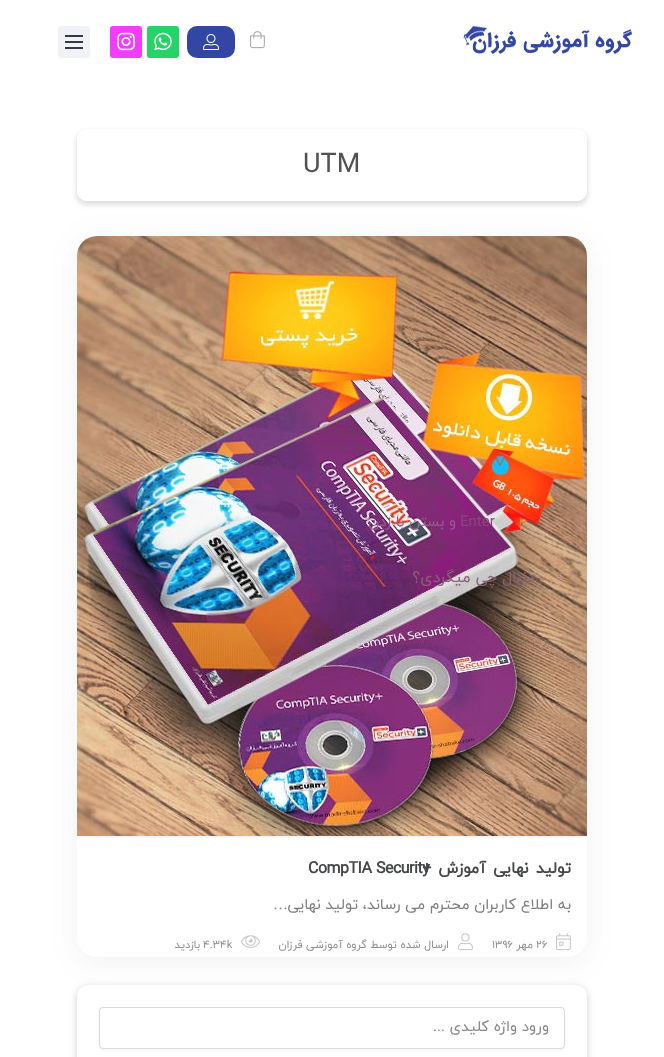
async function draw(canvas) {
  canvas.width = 664
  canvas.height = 1057
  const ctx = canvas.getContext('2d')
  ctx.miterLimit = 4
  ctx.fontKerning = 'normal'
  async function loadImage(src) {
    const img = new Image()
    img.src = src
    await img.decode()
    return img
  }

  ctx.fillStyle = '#fff'
  ctx.fillRect(0, 0, 664, 1057)
  ctx.drawImage(await loadImage('image0.png'), 463, 26, 169, 28)
  ctx.drawImage(await loadImage('image1.png'), 250, 31, 15, 18)
  ctx.fillStyle = '#3346a4'
  ctx.beginPath()
  ctx.roundRect(188, 27, 46, 30, 9)
  ctx.fill()
  ctx.strokeStyle = '#3346a4'
  ctx.lineWidth = 2
  ctx.stroke()
  ctx.drawImage(await loadImage('image2.png'), 203, 34, 16, 16)
  ctx.fillStyle = '#25d366'
  ctx.beginPath()
  ctx.roundRect(147, 26, 32, 32, 3)
  ctx.fill()
  ctx.drawImage(await loadImage('image3.png'), 154, 32, 18, 19)
  ctx.fillStyle = '#f23dff'
  ctx.beginPath()
  ctx.roundRect(110, 26, 32, 32, 3)
  ctx.fill()
  ctx.drawImage(await loadImage('image4.png'), 117, 32, 18, 19)
  ctx.fillStyle = '#f0f2f7'
  ctx.beginPath()
  ctx.roundRect(58, 26, 32, 32, 4)
  ctx.fill()
  ctx.fillStyle = '#343a40'
  ctx.fillRect(65, 41, 18, 2)
  ctx.fillRect(65, 35, 18, 2)
  ctx.fillRect(65, 47, 18, 2)
  ctx.save()
  ctx.beginPath()
  ctx.moveTo(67, 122)
  ctx.lineTo(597, 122)
  ctx.lineTo(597, 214)
  ctx.lineTo(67, 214)
  ctx.closePath()
  ctx.moveTo(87, 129)
  ctx.lineTo(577, 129)
  ctx.bezierCurveTo(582.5, 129, 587, 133.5, 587, 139)
  ctx.lineTo(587, 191)
  ctx.bezierCurveTo(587, 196.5, 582.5, 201, 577, 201)
  ctx.lineTo(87, 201)
  ctx.bezierCurveTo(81.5, 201, 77, 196.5, 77, 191)
  ctx.lineTo(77, 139)
  ctx.bezierCurveTo(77, 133.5, 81.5, 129, 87, 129)
  ctx.closePath()
  ctx.clip('evenodd')
  ctx.fillStyle = '#dfdfdf'
  ctx.filter = 'blur(2.5px)'
  ctx.beginPath()
  ctx.roundRect(76, 131, 512, 74, 11)
  ctx.fill()
  ctx.filter = 'none'
  ctx.restore()
  ctx.fillStyle = '#ffffff94'
  ctx.beginPath()
  ctx.roundRect(77, 129, 510, 72, 10)
  ctx.fill()
  ctx.font = '27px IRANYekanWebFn'
  ctx.fillStyle = '#525252'
  ctx.fillText('UTM', 303, 172)
  ctx.fillStyle = '#46484d14'
  ctx.filter = 'blur(15px)'
  ctx.beginPath()
  ctx.roundRect(77, 241, 510, 721, 20)
  ctx.fill()
  ctx.filter = 'none'
  ctx.fillStyle = '#fff'
  ctx.beginPath()
  ctx.roundRect(77, 236, 510, 721, 20)
  ctx.fill()
  ctx.save()
  ctx.beginPath()
  ctx.rect(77, 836, 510, 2)
  ctx.clip()
  ctx.fillStyle = '#00000012'
  ctx.filter = 'blur(1px)'
  ctx.beginPath()
  ctx.rect(77, 237, 510, 600)
  ctx.fill()
  ctx.filter = 'none'
  ctx.restore()
  ctx.drawImage(await loadImage('image5.png'), 77, 236, 510, 600)
  ctx.font = '15px IRANYekanWebFn'
  ctx.fillStyle = '#8f4284'
  ctx.fillText('Enter', 460, 526)
  ctx.direction = 'rtl'
  ctx.fillStyle = '#965e8c'
  ctx.fillText('و بستن با زدن', 456, 526)
  ctx.font = '16px IRANYekanWebFn'
  ctx.fillStyle = '#896078'
  ctx.fillText('دنبال چی میگردی؟', 535, 582)
  ctx.letterSpacing = '-0.5px'
  ctx.direction = 'ltr'
  ctx.font = 'bold 16px IRANYekanWebFn'
  ctx.fillStyle = '#464749'
  ctx.fillText('CompTIA Security', 308, 873)
  ctx.wordSpacing = '3px'
  ctx.direction = 'rtl'
  ctx.fillText('تولید نهایی آموزش +', 571, 873)
  ctx.letterSpacing = '0px'
  ctx.wordSpacing = '0px'
  ctx.font = '15px IRANYekanWebFn'
  ctx.fillStyle = '#7d7e7f'
  ctx.fillText('به اطلاع کاربران محترم می رساند، تولید نهایی', 571, 909)
  ctx.font = '15px Liberation Serif'
  ctx.fillText('…', 288, 909)
  ctx.drawImage(await loadImage('image6.png'), 556, 933, 15, 18)
  ctx.direction = 'ltr'
  ctx.font = '11px IRANYekanWebFn'
  ctx.fillStyle = '#8f8f8f'
  ctx.fillText('26', 536, 948)
  ctx.direction = 'rtl'
  ctx.fillText('مهر', 533, 948)
  ctx.direction = 'ltr'
  ctx.fillText('1396', 492, 948)
  ctx.drawImage(await loadImage('image7.png'), 458, 933, 15, 18)
  ctx.direction = 'rtl'
  ctx.fillText('ارسال شده توسط', 449, 948)
  ctx.fillText('گروه آموزشی فرزان', 367, 948)
  ctx.drawImage(await loadImage('image8.png'), 241, 935, 19, 13)
  ctx.direction = 'ltr'
  ctx.fillText('4.34k', 203, 948)
  ctx.direction = 'rtl'
  ctx.fillText('بازدید', 200, 948)
  ctx.fillStyle = '#6c6c6c40'
  ctx.filter = 'blur(3.5px)'
  ctx.beginPath()
  ctx.roundRect(76, 986, 512, 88, 13)
  ctx.fill()
  ctx.filter = 'none'
  ctx.fillStyle = '#fff'
  ctx.beginPath()
  ctx.roundRect(77, 985, 510, 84, 12)
  ctx.fill()
  ctx.fillStyle = '#0000000f'
  ctx.filter = 'blur(1.5px)'
  ctx.beginPath()
  ctx.roundRect(99, 1008, 466, 42, 4)
  ctx.fill()
  ctx.filter = 'none'
  ctx.fillStyle = '#fff'
  ctx.beginPath()
  ctx.roundRect(99.5, 1007.5, 465, 41, 3.5)
  ctx.fill()
  ctx.strokeStyle = '#dcdcdc'
  ctx.lineWidth = 1
  ctx.stroke()
  ctx.font = '15px IRANYekanWebFn'
  ctx.fillStyle = '#888'
  ctx.fillText('ورود واژه کلیدی ...', 549, 1031)
}

draw(document.querySelector('canvas'))
